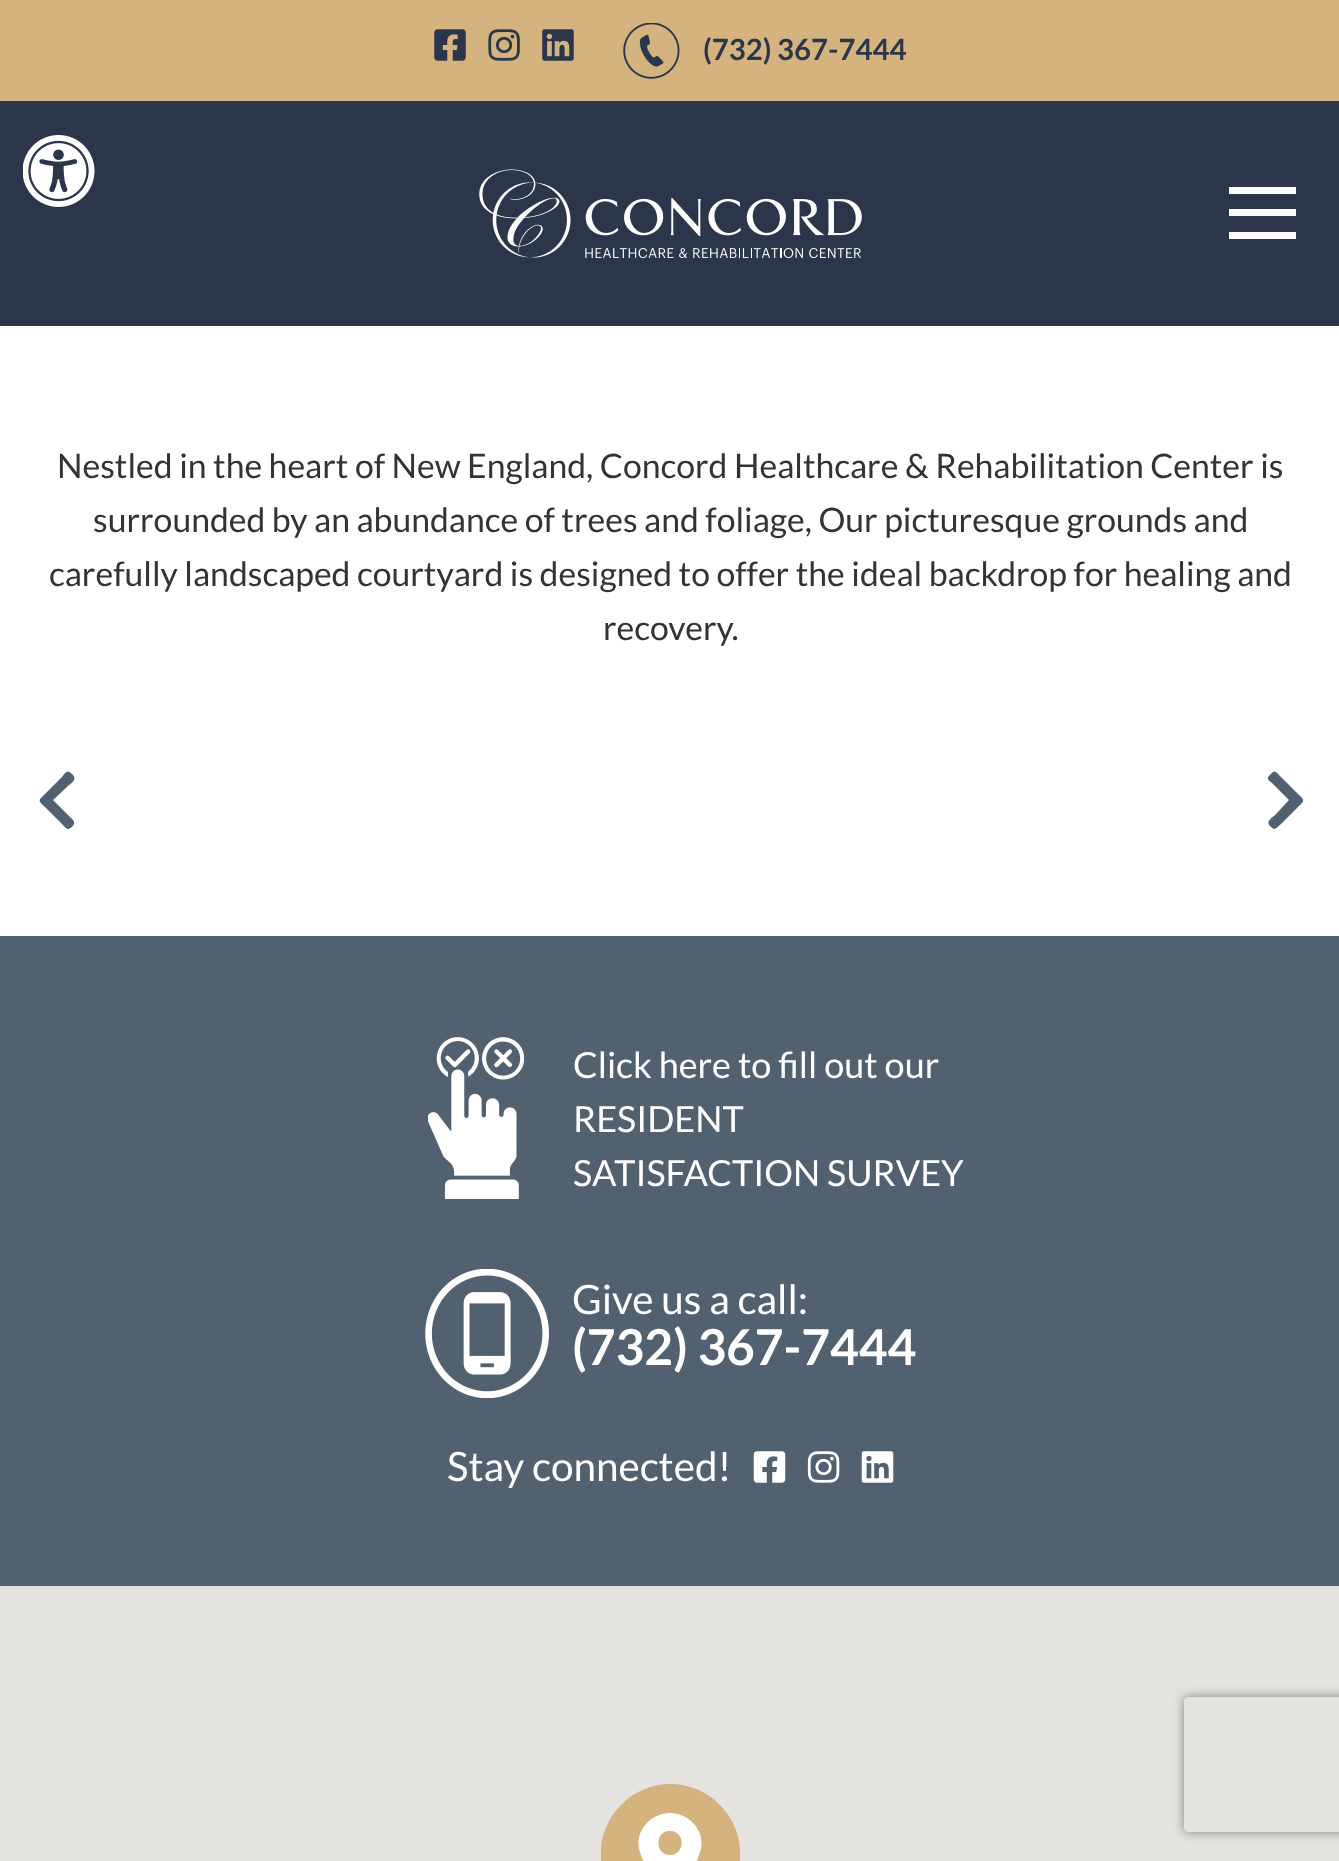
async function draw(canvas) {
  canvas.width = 1339
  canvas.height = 1861
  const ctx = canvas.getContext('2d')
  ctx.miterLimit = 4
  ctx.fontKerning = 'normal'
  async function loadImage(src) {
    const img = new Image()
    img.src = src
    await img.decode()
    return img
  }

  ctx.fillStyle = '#fff'
  ctx.fillRect(0, 0, 1339, 1861)
  ctx.fillStyle = '#2c364b'
  ctx.fillRect(0, 101, 1339, 225)
  ctx.fillStyle = '#d4b37f'
  ctx.fillRect(0, 0, 1339, 101)
  ctx.drawImage(await loadImage('image0.png'), 434, 29, 32, 32)
  ctx.drawImage(await loadImage('image1.png'), 488, 29, 32, 32)
  ctx.drawImage(await loadImage('image2.png'), 542, 29, 32, 32)
  ctx.drawImage(await loadImage('image3.png'), 623, 23, 57, 56)
  ctx.font = 'bold 29.25px Lato'
  ctx.fillStyle = '#2c364b'
  ctx.fillText('(732) 367-7444', 703, 60)
  ctx.drawImage(await loadImage('image4.png'), 479, 169, 383, 89)
  ctx.fillStyle = '#fff'
  ctx.fillRect(1229, 187, 67, 7)
  ctx.fillRect(1229, 209, 67, 7)
  ctx.fillRect(1229, 232, 67, 7)
  ctx.drawImage(await loadImage('image5.png'), 23, 135, 72, 72)
  ctx.font = '33.75px Lato'
  ctx.fillStyle = '#333'
  ctx.fillText('Nestled in the heart of New England, Concord Healthcare & Rehabilitation Center is', 57, 478)
  ctx.fillText('surrounded by an abundance of trees and foliage, Our picturesque grounds and', 93, 532)
  ctx.fillText('carefully landscaped courtyard is designed to offer the ideal backdrop for healing and', 49, 586)
  ctx.fillText('recovery.', 603, 640)
  ctx.fillStyle = '#526170'
  ctx.beginPath()
  ctx.moveTo(41, 798)
  ctx.lineTo(62, 777)
  ctx.bezierCurveTo(66, 772, 67, 769, 72, 774)
  ctx.bezierCurveTo(78, 780, 72, 782, 67, 787)
  ctx.lineTo(53, 800)
  ctx.lineTo(70, 817)
  ctx.bezierCurveTo(72, 819, 75, 821, 74, 824)
  ctx.lineTo(72, 827)
  ctx.bezierCurveTo(67, 831, 66, 828, 62, 824)
  ctx.lineTo(45, 807)
  ctx.bezierCurveTo(43, 805, 37, 801, 41, 798)
  ctx.closePath()
  ctx.fill()
  ctx.beginPath()
  ctx.moveTo(1302, 803)
  ctx.lineTo(1281, 824)
  ctx.bezierCurveTo(1276, 828, 1275, 831, 1271, 827)
  ctx.bezierCurveTo(1265, 821, 1271, 819, 1276, 814)
  ctx.lineTo(1289, 800)
  ctx.lineTo(1272, 783)
  ctx.bezierCurveTo(1271, 782, 1267, 780, 1268, 777)
  ctx.lineTo(1271, 774)
  ctx.bezierCurveTo(1275, 769, 1276, 772, 1281, 777)
  ctx.lineTo(1298, 794)
  ctx.bezierCurveTo(1299, 795, 1306, 800, 1302, 803)
  ctx.closePath()
  ctx.fill()
  ctx.fillRect(0, 936, 1339, 650)
  ctx.drawImage(await loadImage('image6.png'), 428, 1037, 96, 162)
  ctx.font = '36px Lato'
  ctx.fillStyle = '#fff'
  ctx.fillText('Click here to fill out our', 573, 1078)
  ctx.fillText('RESIDENT', 573, 1132)
  ctx.fillText('SATISFACTION SURVEY', 573, 1186)
  ctx.drawImage(await loadImage('image7.png'), 425, 1269, 124, 129)
  ctx.font = '40.5px Lato'
  ctx.fillText('Give us a call:', 572, 1314)
  ctx.font = 'bold 49.5px Lato'
  ctx.fillText('(732) 367-7444', 572, 1365)
  ctx.font = '40.5px Lato'
  ctx.fillText('Stay connected!', 447, 1481)
  ctx.drawImage(await loadImage('image8.png'), 753, 1451, 33, 32)
  ctx.drawImage(await loadImage('image9.png'), 807, 1451, 33, 32)
  ctx.drawImage(await loadImage('image10.png'), 861, 1451, 33, 32)
  ctx.fillStyle = '#e5e3df'
  ctx.fillRect(0, 1586, 1339, 275)
  ctx.save()
  ctx.beginPath()
  ctx.rect(601, 1784, 139, 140)
  ctx.clip()
  ctx.fillStyle = '#d5b37f'
  ctx.beginPath()
  ctx.moveTo(720, 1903)
  ctx.bezierCurveTo(747, 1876, 747, 1832, 720, 1805)
  ctx.bezierCurveTo(693, 1777, 648, 1777, 621, 1805)
  ctx.bezierCurveTo(594, 1832, 594, 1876, 621, 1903)
  ctx.bezierCurveTo(648, 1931, 693, 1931, 720, 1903)
  ctx.closePath()
  ctx.fill()
  ctx.restore()
  ctx.fillStyle = '#fff'
  ctx.beginPath()
  ctx.moveTo(670, 1813)
  ctx.bezierCurveTo(650, 1813, 633, 1833, 640, 1852)
  ctx.bezierCurveTo(644, 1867, 659, 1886, 670, 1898)
  ctx.bezierCurveTo(681, 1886, 696, 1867, 700, 1852)
  ctx.bezierCurveTo(707, 1833, 690, 1813, 670, 1813)
  ctx.closePath()
  ctx.moveTo(670, 1855)
  ctx.bezierCurveTo(654, 1855, 655, 1830, 670, 1831)
  ctx.bezierCurveTo(686, 1831, 685, 1855, 670, 1855)
  ctx.closePath()
  ctx.fill()
  ctx.save()
  ctx.beginPath()
  ctx.moveTo(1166, 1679)
  ctx.lineTo(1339, 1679)
  ctx.lineTo(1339, 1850)
  ctx.lineTo(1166, 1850)
  ctx.closePath()
  ctx.moveTo(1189, 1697)
  ctx.lineTo(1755, 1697)
  ctx.bezierCurveTo(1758, 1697, 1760, 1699, 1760, 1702)
  ctx.lineTo(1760, 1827)
  ctx.bezierCurveTo(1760, 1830, 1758, 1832, 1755, 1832)
  ctx.lineTo(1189, 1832)
  ctx.bezierCurveTo(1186, 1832, 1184, 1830, 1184, 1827)
  ctx.lineTo(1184, 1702)
  ctx.bezierCurveTo(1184, 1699, 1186, 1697, 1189, 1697)
  ctx.closePath()
  ctx.clip('evenodd')
  ctx.fillStyle = '#808080'
  ctx.filter = 'blur(5.5px)'
  ctx.beginPath()
  ctx.roundRect(1184, 1697, 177, 135, 5)
  ctx.fill()
  ctx.filter = 'none'
  ctx.restore()
}

draw(document.querySelector('canvas'))
